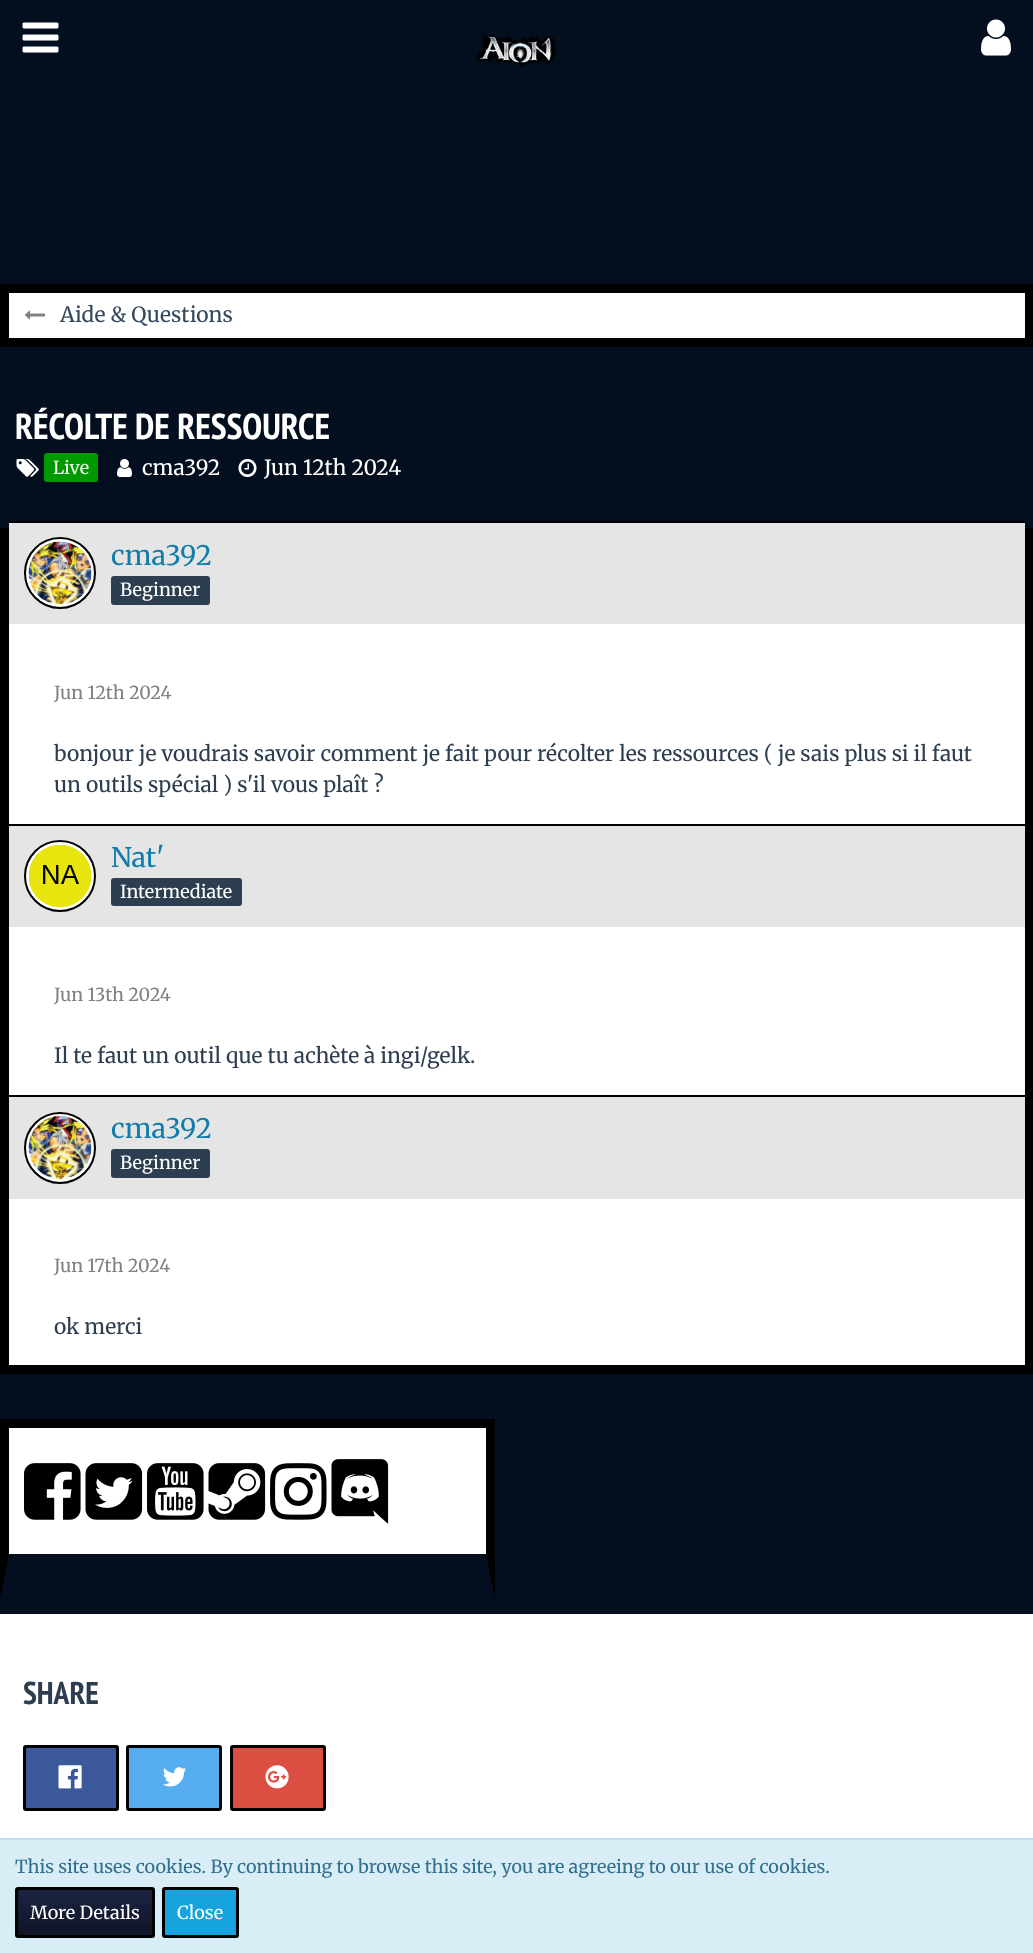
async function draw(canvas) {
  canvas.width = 1033
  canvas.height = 1953
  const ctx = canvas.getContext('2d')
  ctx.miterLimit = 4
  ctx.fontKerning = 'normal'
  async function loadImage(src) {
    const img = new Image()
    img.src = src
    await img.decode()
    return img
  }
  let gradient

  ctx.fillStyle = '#030f1e'
  ctx.fillRect(0, 0, 1033, 1953)
  ctx.drawImage(await loadImage('image0.png'), 22, 22, 37, 31)
  ctx.drawImage(await loadImage('image1.png'), 981, 19, 30, 37)
  ctx.drawImage(await loadImage('image2.png'), 475, 34, 82, 33)
  ctx.fillStyle = '#fff'
  ctx.beginPath()
  ctx.rect(4.5, 288.5, 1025, 54)
  ctx.fill()
  ctx.strokeStyle = '#000'
  ctx.lineWidth = 9
  ctx.stroke()
  ctx.drawImage(await loadImage('image3.png'), 24, 310, 21, 10)
  ctx.font = '21px Merriweather'
  ctx.fillStyle = '#34495e'
  ctx.fillText('Aide & Questions', 60, 322)
  ctx.font = 'bold 36px PT Sans Narrow'
  ctx.fillStyle = '#fff'
  ctx.fillText('RÉCOLTE DE RESSOURCE', 15, 439)
  ctx.drawImage(await loadImage('image4.png'), 16, 459, 23, 18)
  ctx.fillStyle = '#090'
  ctx.beginPath()
  ctx.roundRect(44, 453, 54, 29, 3)
  ctx.fill()
  ctx.font = '18px Merriweather'
  ctx.fillStyle = '#efe'
  ctx.fillText('Live', 53, 474)
  ctx.drawImage(await loadImage('image5.png'), 117, 459, 15, 18)
  ctx.font = '21px Merriweather'
  ctx.fillStyle = '#fff'
  ctx.fillText('cma392', 142, 475)
  ctx.drawImage(await loadImage('image6.png'), 238, 459, 19, 18)
  ctx.fillText('Jun 12th 2024', 264, 475)
  ctx.fillRect(9, 624, 1016, 741)
  ctx.strokeRect(4.5, 532.5, 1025, 837)
  ctx.fillStyle = '#e5e5e5'
  ctx.fillRect(9, 523, 1016, 101)
  ctx.fillStyle = '#000'
  ctx.fillRect(9, 521, 1016, 2)
  ctx.fillStyle = '#fff'
  ctx.beginPath()
  ctx.arc(60, 573, 35, 0, 2 * Math.PI)
  ctx.fill()
  ctx.lineWidth = 2
  ctx.stroke()
  ctx.drawImage(await loadImage('image7.png'), 28, 541, 64, 64)
  ctx.font = '27px Merriweather'
  ctx.fillStyle = '#117dab'
  ctx.fillText('cma392', 111, 565)
  ctx.fillStyle = '#2c3e50'
  ctx.beginPath()
  ctx.roundRect(111, 576, 99, 29, 3)
  ctx.fill()
  ctx.font = '18px Merriweather'
  ctx.fillStyle = '#fff'
  ctx.fillText('Beginner', 120, 596)
  ctx.fillStyle = '#7d8287'
  ctx.fillText('Jun 12th 2024', 54, 699)
  ctx.font = '21px Merriweather'
  ctx.fillStyle = '#2c3e50'
  ctx.fillText('bonjour je voudrais savoir comment je fait pour récolter les ressources ( je sais plus si il faut', 54, 761)
  ctx.fillText('un outils spécial ) s\'il vous plaît ?', 54, 792)
  ctx.fillStyle = '#e5e5e5'
  ctx.fillRect(9, 826, 1016, 101)
  ctx.fillStyle = '#000'
  ctx.fillRect(9, 824, 1016, 2)
  ctx.fillStyle = '#fff'
  ctx.beginPath()
  ctx.arc(60, 876, 35, 0, 2 * Math.PI)
  ctx.fill()
  ctx.stroke()
  ctx.drawImage(await loadImage('image8.png'), 29, 845, 63, 63)
  ctx.font = '27px Merriweather'
  ctx.fillStyle = '#117dab'
  ctx.fillText('Nat\'', 111, 867)
  ctx.fillStyle = '#2c3e50'
  ctx.beginPath()
  ctx.roundRect(111, 878, 131, 28, 3)
  ctx.fill()
  ctx.font = '18px Merriweather'
  ctx.fillStyle = '#fff'
  ctx.fillText('Intermediate', 120, 898)
  ctx.fillStyle = '#7d8287'
  ctx.fillText('Jun 13th 2024', 54, 1001)
  ctx.font = '21px Merriweather'
  ctx.fillStyle = '#2c3e50'
  ctx.fillText('Il te faut un outil que tu achète à ingi/gelk.', 54, 1063)
  ctx.fillStyle = '#e5e5e5'
  ctx.fillRect(9, 1097, 1016, 102)
  ctx.fillStyle = '#000'
  ctx.fillRect(9, 1095, 1016, 2)
  ctx.fillStyle = '#fff'
  ctx.beginPath()
  ctx.arc(60, 1148, 35, 0, 2 * Math.PI)
  ctx.fill()
  ctx.stroke()
  ctx.drawImage(await loadImage('image9.png'), 28, 1116, 64, 63)
  ctx.font = '27px Merriweather'
  ctx.fillStyle = '#117dab'
  ctx.fillText('cma392', 111, 1138)
  ctx.fillStyle = '#2c3e50'
  ctx.beginPath()
  ctx.roundRect(111, 1149, 99, 29, 3)
  ctx.fill()
  ctx.font = '18px Merriweather'
  ctx.fillStyle = '#fff'
  ctx.fillText('Beginner', 120, 1169)
  ctx.fillStyle = '#7d8287'
  ctx.fillText('Jun 17th 2024', 54, 1272)
  ctx.font = '21px Merriweather'
  ctx.fillStyle = '#2c3e50'
  ctx.fillText('ok merci', 54, 1334)
  ctx.fillStyle = '#fff'
  ctx.fillRect(9, 1428, 477, 126)
  ctx.fillStyle = '#000'
  ctx.fillRect(0, 1419, 495, 9)
  ctx.beginPath()
  ctx.moveTo(495, 1419)
  ctx.lineTo(495, 1599)
  ctx.lineTo(486, 1554)
  ctx.lineTo(486, 1428)
  ctx.closePath()
  ctx.fill()
  ctx.beginPath()
  ctx.moveTo(0, 1599)
  ctx.lineTo(0, 1419)
  ctx.lineTo(9, 1428)
  ctx.lineTo(9, 1554)
  ctx.closePath()
  ctx.fill()
  ctx.drawImage(await loadImage('image10.png'), 24, 1463, 57, 57)
  ctx.drawImage(await loadImage('image11.png'), 85, 1463, 58, 57)
  ctx.drawImage(await loadImage('image12.png'), 147, 1463, 57, 57)
  ctx.drawImage(await loadImage('image13.png'), 208, 1463, 58, 57)
  ctx.drawImage(await loadImage('image14.png'), 270, 1463, 57, 57)
  ctx.drawImage(await loadImage('image15.png'), 331, 1459, 58, 65)
  ctx.fillStyle = '#fff'
  ctx.fillRect(0, 1614, 1033, 224)
  ctx.font = 'bold 31.5px PT Sans Narrow'
  ctx.fillStyle = '#2c3e50'
  ctx.fillText('SHARE', 23, 1704)
  ctx.fillStyle = '#3b5999'
  ctx.beginPath()
  ctx.roundRect(24.5, 1746.5, 93, 63, 1.5)
  ctx.fill()
  ctx.lineWidth = 3
  ctx.stroke()
  ctx.drawImage(await loadImage('image16.png'), 58, 1765, 24, 24)
  ctx.fillStyle = '#55acee'
  ctx.beginPath()
  ctx.roundRect(127.5, 1746.5, 93, 63, 1.5)
  ctx.fill()
  ctx.stroke()
  ctx.drawImage(await loadImage('image17.png'), 163, 1767, 24, 20)
  ctx.fillStyle = '#dc4e41'
  ctx.beginPath()
  ctx.roundRect(231.5, 1746.5, 93, 63, 1.5)
  ctx.fill()
  ctx.stroke()
  ctx.drawImage(await loadImage('image18.png'), 265, 1765, 24, 24)
  ctx.fillStyle = '#d9edf7'
  ctx.fillRect(0, 1840, 1033, 113)
  ctx.fillStyle = '#bcdff1'
  ctx.fillRect(0, 1838, 1033, 2)
  ctx.font = '18px Merriweather'
  ctx.fillStyle = '#31708f'
  ctx.fillText('This site uses cookies. By continuing to browse this site, you are agreeing to our use of cookies.', 15, 1873)
  gradient = ctx.createLinearGradient(85, 1935, 85, 1890)
  gradient.addColorStop(0, '#0f1426')
  gradient.addColorStop(1, '#1b2342')
  ctx.fillStyle = gradient
  ctx.fillRect(18, 1890, 134, 45)
  ctx.beginPath()
  ctx.roundRect(16.5, 1888.5, 137, 48, 1.5)
  ctx.stroke()
  ctx.fillStyle = '#fff'
  ctx.fillText('More Details', 30, 1919)
  ctx.fillStyle = '#17a4de'
  ctx.beginPath()
  ctx.roundRect(163.5, 1888.5, 74, 48, 1.5)
  ctx.fill()
  ctx.stroke()
  ctx.fillStyle = '#fff'
  ctx.fillText('Close', 177, 1919)
}

draw(document.querySelector('canvas'))
